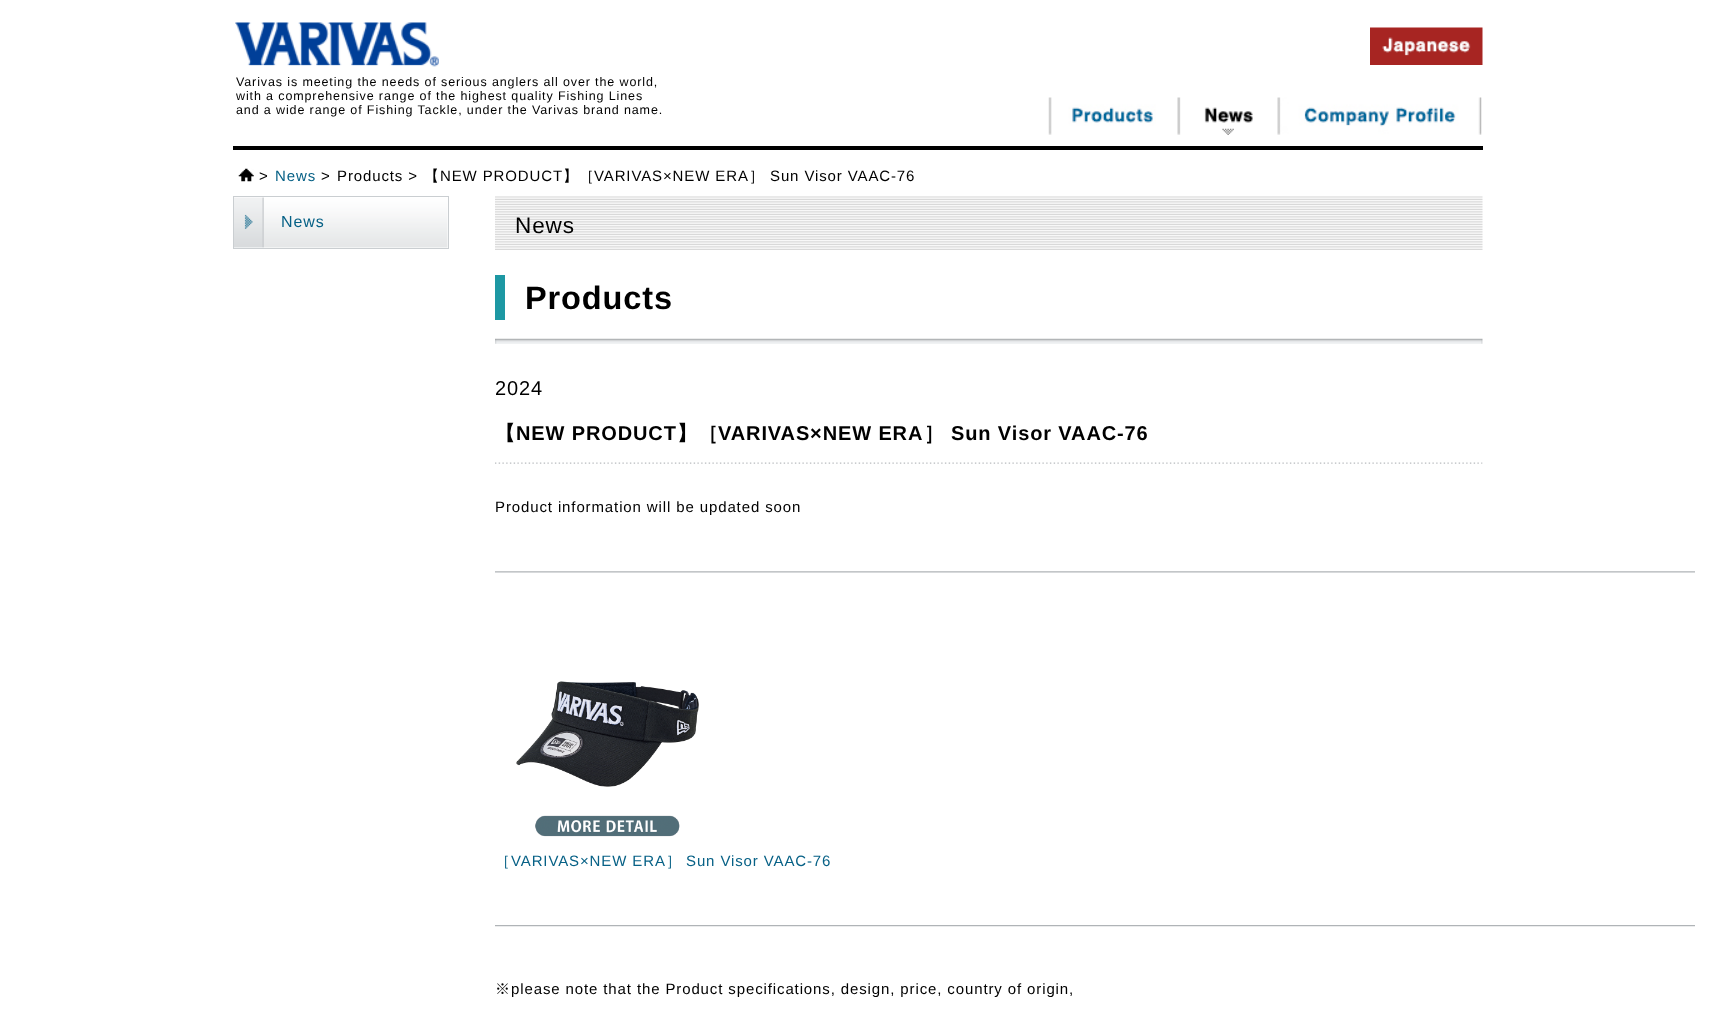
async function draw(canvas) {
  canvas.width = 1715
  canvas.height = 1015
  const ctx = canvas.getContext('2d')
  ctx.miterLimit = 4
  ctx.fontKerning = 'normal'
  async function loadImage(src) {
    const img = new Image()
    img.src = src
    await img.decode()
    return img
  }

  ctx.fillStyle = '#fff'
  ctx.fillRect(0, 0, 1715, 1015)
  ctx.fillStyle = '#000'
  ctx.fillRect(233, 146, 1250, 4)
  ctx.drawImage(await loadImage('image0.png'), 235, 22, 204, 45)
  ctx.drawImage(await loadImage('image1.png'), 1370, 27, 113, 38)
  ctx.letterSpacing = '0.88px'
  ctx.font = '12.5px Liberation Sans'
  ctx.fillText('Varivas is meeting the needs of serious anglers all over the world,', 236, 86)
  ctx.fillText('with a comprehensive range of the highest quality Fishing Lines', 236, 100)
  ctx.fillText('and a wide range of Fishing Tackle, under the Varivas brand name.', 236, 114)
  ctx.drawImage(await loadImage('image2.png'), 1048, 97, 108, 38)
  ctx.drawImage(await loadImage('image3.png'), 1177, 97, 76, 38)
  ctx.drawImage(await loadImage('image4.png'), 1277, 97, 205, 38)
  ctx.drawImage(await loadImage('image5.png'), 238, 168, 16, 14)
  ctx.font = '15px Liberation Sans'
  ctx.fillText('>', 259, 181)
  ctx.fillStyle = '#076186'
  ctx.fillText('News', 275, 181)
  ctx.fillStyle = '#000'
  ctx.fillText('>', 321, 181)
  ctx.fillText('Products >', 337, 181)
  ctx.font = '500 15px WenQuanYi Zen Hei'
  ctx.fillText('【', 424, 181)
  ctx.font = '15px Liberation Sans'
  ctx.fillText('NEW PRODUCT', 440, 181)
  ctx.font = '500 15px WenQuanYi Zen Hei'
  ctx.fillText('】［', 563, 181)
  ctx.font = '15px Liberation Sans'
  ctx.fillText('VARIVAS×NEW ERA', 594, 181)
  ctx.font = '500 15px WenQuanYi Zen Hei'
  ctx.fillText('］', 749, 181)
  ctx.font = '15px Liberation Sans'
  ctx.fillText('Sun Visor VAAC-76', 770, 181)
  ctx.drawImage(await loadImage('image6.png'), 234, 197, 214, 51)
  ctx.strokeStyle = '#caced1'
  ctx.strokeRect(233.5, 196.5, 215, 52)
  ctx.font = '16px Liberation Sans'
  ctx.fillStyle = '#076186'
  ctx.fillText('News', 281, 227)
  ctx.drawImage(await loadImage('image7.png'), 495, 196, 988, 54)
  ctx.font = '22.5px Liberation Sans'
  ctx.fillStyle = '#000'
  ctx.fillText('News', 515, 233)
  ctx.drawImage(await loadImage('image8.png'), 495, 338, 988, 6)
  ctx.fillStyle = '#1d98a3'
  ctx.fillRect(495, 275, 10, 45)
  ctx.font = 'bold 32.5px Liberation Sans'
  ctx.fillStyle = '#000'
  ctx.fillText('Products', 525, 309)
  ctx.font = '20px Liberation Sans'
  ctx.fillText('2024', 495, 395)
  ctx.drawImage(await loadImage('image9.png'), 495, 462, 988, 2)
  ctx.font = 'bold 20px WenQuanYi Zen Hei'
  ctx.fillText('【', 495, 440)
  ctx.font = 'bold 20px Liberation Sans'
  ctx.fillText('NEW PRODUCT', 516, 440)
  ctx.font = 'bold 20px WenQuanYi Zen Hei'
  ctx.fillText('】［', 677, 440)
  ctx.font = 'bold 20px Liberation Sans'
  ctx.fillText('VARIVAS×NEW ERA', 718, 440)
  ctx.font = 'bold 20px WenQuanYi Zen Hei'
  ctx.fillText('］', 924, 440)
  ctx.font = 'bold 20px Liberation Sans'
  ctx.fillText('Sun Visor VAAC-76', 951, 440)
  ctx.font = '15px Liberation Sans'
  ctx.fillText('Product information will be updated soon', 495, 512)
  ctx.drawImage(await loadImage('image10.png'), 495, 571, 1200, 2)
  ctx.drawImage(await loadImage('image11.png'), 516, 681, 183, 156)
  ctx.font = '500 15px WenQuanYi Zen Hei'
  ctx.fillStyle = '#076186'
  ctx.fillText('［', 495, 866)
  ctx.font = '15px Liberation Sans'
  ctx.fillText('VARIVAS×NEW ERA', 511, 866)
  ctx.font = '500 15px WenQuanYi Zen Hei'
  ctx.fillText('］', 666, 866)
  ctx.font = '15px Liberation Sans'
  ctx.fillText('Sun Visor VAAC-76', 686, 866)
  ctx.drawImage(await loadImage('image12.png'), 495, 925, 1200, 2)
  ctx.font = '500 15px WenQuanYi Zen Hei'
  ctx.fillStyle = '#000'
  ctx.fillText('※', 495, 994)
  ctx.font = '15px Liberation Sans'
  ctx.fillText('please note that the Product specifications, design, price, country of origin,', 511, 994)
}

draw(document.querySelector('canvas'))
